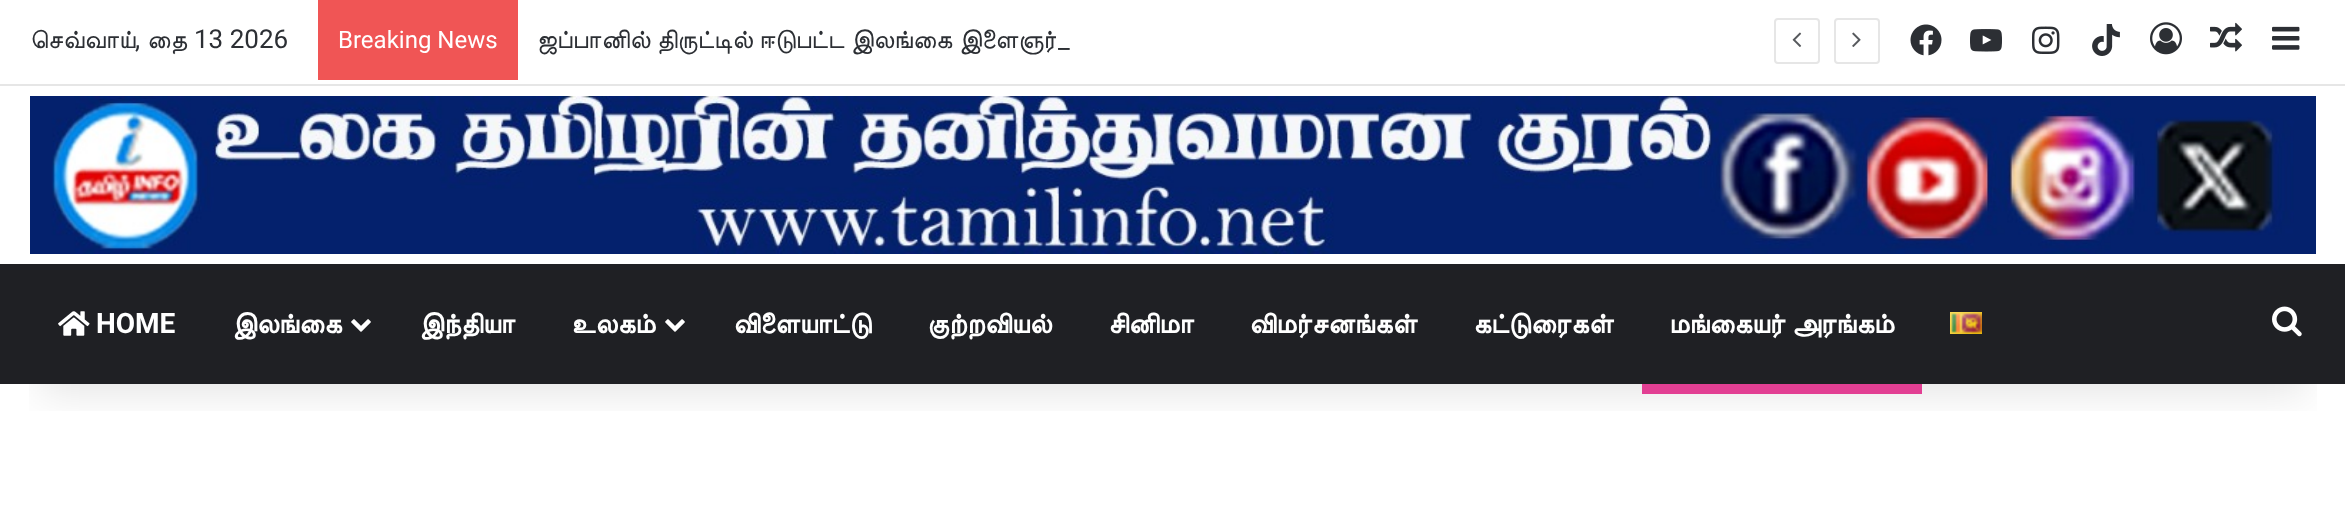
async function draw(canvas) {
  canvas.width = 2345
  canvas.height = 525
  const ctx = canvas.getContext('2d')
  ctx.miterLimit = 4
  ctx.fontKerning = 'normal'
  async function loadImage(src) {
    const img = new Image()
    img.src = src
    await img.decode()
    return img
  }

  ctx.fillStyle = '#fff'
  ctx.fillRect(0, 0, 2345, 525)
  ctx.save()
  ctx.beginPath()
  ctx.rect(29, 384, 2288, 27)
  ctx.clip()
  ctx.fillStyle = '#0000001a'
  ctx.filter = 'blur(20px)'
  ctx.beginPath()
  ctx.rect(40, 90, 2266, 304)
  ctx.fill()
  ctx.filter = 'none'
  ctx.restore()
  ctx.fillStyle = '#e6e6e6'
  ctx.fillRect(0, 84, 2345, 2)
  ctx.font = '26px FreeSans'
  ctx.fillStyle = '#2c2f34'
  ctx.fillText('செவ்வாய்', 30, 48)
  ctx.font = '26px Roboto'
  ctx.fillText(',', 135, 48)
  ctx.font = '26px FreeSans'
  ctx.fillText('தை', 147, 48)
  ctx.font = '26px Roboto'
  ctx.fillText('13 2026', 194, 48)
  ctx.fillStyle = '#f05555'
  ctx.fillRect(318, 0, 200, 80)
  ctx.font = '24px Roboto'
  ctx.fillStyle = '#fff'
  ctx.fillText('Breaking News', 338, 48)
  ctx.font = '26px FreeSans'
  ctx.fillStyle = '#2c2f34'
  ctx.fillText('ஜப்பானில் திருட்டில் ஈடுபட்ட இலங்கை இளைஞர்', 537, 48)
  ctx.fillStyle = '#fff'
  ctx.fillRect(1056, 36, 2, 3)
  ctx.font = '26px Roboto'
  ctx.fillStyle = '#2c2f34'
  ctx.fillText('_', 1058, 48)
  ctx.beginPath()
  ctx.roundRect(1775, 19, 44, 44, 3)
  ctx.strokeStyle = '#e6e6e6'
  ctx.lineWidth = 2
  ctx.stroke()
  ctx.drawImage(await loadImage('image0.png'), 1792, 32, 10, 15)
  ctx.beginPath()
  ctx.roundRect(1835, 19, 44, 44, 3)
  ctx.stroke()
  ctx.drawImage(await loadImage('image1.png'), 1852, 32, 9, 15)
  ctx.drawImage(await loadImage('image2.png'), 1910, 24, 32, 32)
  ctx.drawImage(await loadImage('image3.png'), 1970, 29, 32, 23)
  ctx.drawImage(await loadImage('image4.png'), 2032, 26, 28, 28)
  ctx.drawImage(await loadImage('image5.png'), 2092, 24, 28, 32)
  ctx.drawImage(await loadImage('image6.png'), 2150, 22, 32, 33)
  ctx.drawImage(await loadImage('image7.png'), 2210, 22, 32, 30)
  ctx.drawImage(await loadImage('image8.png'), 2272, 26, 28, 24)
  ctx.drawImage(await loadImage('image9.png'), 30, 96, 2286, 158)
  ctx.fillStyle = '#1f2024'
  ctx.fillRect(0, 264, 2345, 120)
  ctx.drawImage(await loadImage('image10.png'), 58, 311, 32, 25)
  ctx.font = 'bold 28px Roboto'
  ctx.fillStyle = '#fff'
  ctx.fillText('HOME', 96, 333)
  ctx.font = 'bold 28px FreeSans'
  ctx.fillText('இலங்கை', 232, 333)
  ctx.drawImage(await loadImage('image11.png'), 351, 319, 20, 13)
  ctx.fillText('இந்தியா', 419, 333)
  ctx.fillText('உலகம்', 571, 333)
  ctx.drawImage(await loadImage('image11.png'), 665, 319, 20, 13)
  ctx.fillText('விளையாட்டு', 733, 333)
  ctx.fillText('குற்றவியல்', 927, 333)
  ctx.fillText('சினிமா', 1108, 333)
  ctx.fillText('விமர்சனங்கள்', 1249, 333)
  ctx.fillText('கட்டுரைகள்', 1473, 333)
  ctx.fillStyle = '#e23f93'
  ctx.fillRect(1642, 384, 280, 10)
  ctx.fillStyle = '#fff'
  ctx.fillText('மங்கையர் அரங்கம்', 1669, 333)
  ctx.drawImage(await loadImage('image12.png'), 1950, 312, 32, 22)
  ctx.drawImage(await loadImage('image13.png'), 2272, 306, 30, 31)
}

draw(document.querySelector('canvas'))
